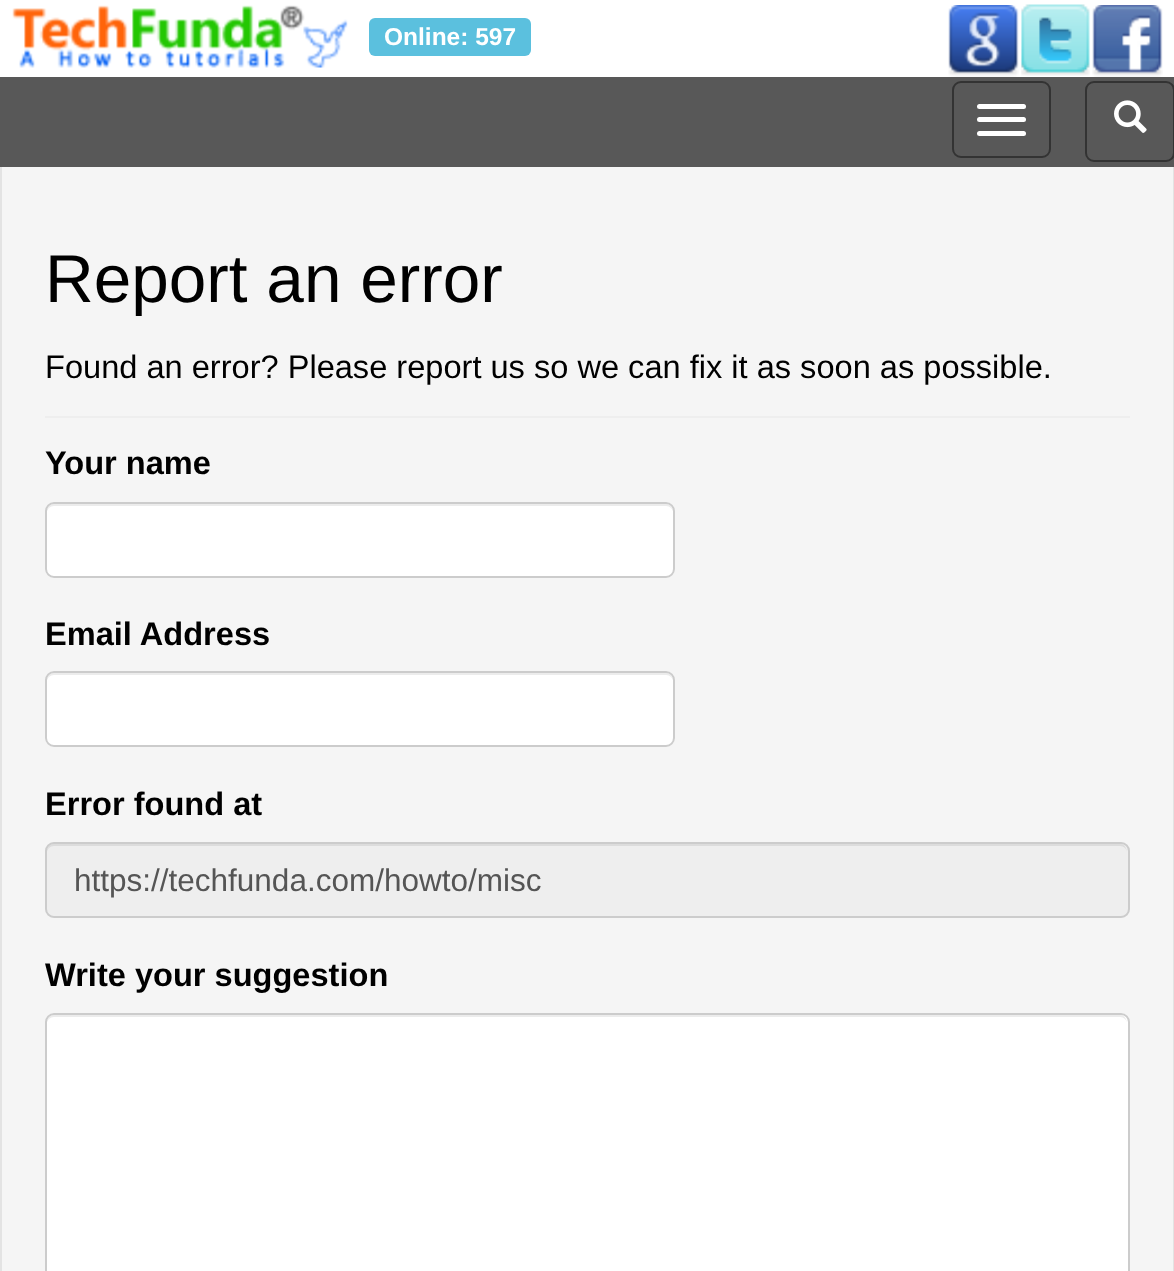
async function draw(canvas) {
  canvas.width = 1174
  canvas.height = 1271
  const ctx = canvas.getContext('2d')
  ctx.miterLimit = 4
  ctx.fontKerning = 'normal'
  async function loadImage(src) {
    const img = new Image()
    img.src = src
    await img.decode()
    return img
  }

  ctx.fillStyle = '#fff'
  ctx.fillRect(0, 0, 1174, 1271)
  ctx.drawImage(await loadImage('image0.png'), 12, 5, 336, 63)
  ctx.fillStyle = '#5bc0de'
  ctx.beginPath()
  ctx.roundRect(369, 18, 162, 38, 6)
  ctx.fill()
  ctx.font = 'bold 24.5px Liberation Sans'
  ctx.fillStyle = '#fff'
  ctx.fillText('Online: 597', 384, 45)
  ctx.drawImage(await loadImage('image1.png'), 948, 5, 71, 72)
  ctx.drawImage(await loadImage('image2.png'), 1021, 4, 69, 72)
  ctx.drawImage(await loadImage('image3.png'), 1092, 5, 71, 72)
  ctx.fillStyle = '#f5f5f5'
  ctx.fillRect(2, 167, 1171, 1104)
  ctx.strokeStyle = '#e3e3e3'
  ctx.lineWidth = 2
  ctx.strokeRect(1, 145, 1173, 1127)
  ctx.fillStyle = '#585858'
  ctx.fillRect(0, 77, 1174, 90)
  ctx.beginPath()
  ctx.roundRect(953, 82, 97, 75, 8)
  ctx.strokeStyle = '#333'
  ctx.stroke()
  ctx.fillStyle = '#fff'
  ctx.beginPath()
  ctx.roundRect(977, 104, 49, 5, 2.5)
  ctx.fill()
  ctx.beginPath()
  ctx.roundRect(977, 117, 49, 5, 2.5)
  ctx.fill()
  ctx.beginPath()
  ctx.roundRect(977, 131, 49, 5, 2.5)
  ctx.fill()
  ctx.beginPath()
  ctx.roundRect(1086, 82, 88, 79, 8)
  ctx.stroke()
  ctx.drawImage(await loadImage('image4.png'), 1114, 100, 33, 33)
  ctx.font = '67.5px Liberation Sans'
  ctx.fillStyle = '#000'
  ctx.fillText('Report an error', 45, 302)
  ctx.font = '32.6px Liberation Sans'
  ctx.fillText('Found an error? Please report us so we can fix it as soon as possible.', 45, 378)
  ctx.fillStyle = '#eee'
  ctx.fillRect(45, 416, 1085, 2)
  ctx.font = 'bold 32.6px Liberation Sans'
  ctx.fillStyle = '#000'
  ctx.fillText('Your name', 45, 474)
  ctx.fillStyle = '#fff'
  ctx.beginPath()
  ctx.roundRect(45, 502, 630, 76, 9)
  ctx.fill()
  ctx.fillStyle = '#ececec'
  ctx.beginPath()
  ctx.moveTo(54, 506)
  ctx.lineTo(666, 506)
  ctx.bezierCurveTo(670, 506, 673, 509, 673, 513)
  ctx.bezierCurveTo(673, 509, 671, 504, 666, 504)
  ctx.lineTo(54, 504)
  ctx.bezierCurveTo(49, 504, 47, 509, 47, 513)
  ctx.bezierCurveTo(47, 509, 50, 506, 54, 506)
  ctx.closePath()
  ctx.fill()
  ctx.beginPath()
  ctx.roundRect(46, 503, 628, 74, 8)
  ctx.strokeStyle = '#ccc'
  ctx.stroke()
  ctx.fillStyle = '#000'
  ctx.fillText('Email Address', 45, 645)
  ctx.fillStyle = '#fff'
  ctx.beginPath()
  ctx.roundRect(45, 671, 630, 76, 9)
  ctx.fill()
  ctx.fillStyle = '#ececec'
  ctx.beginPath()
  ctx.moveTo(54, 675)
  ctx.lineTo(666, 675)
  ctx.bezierCurveTo(670, 675, 673, 678, 673, 682)
  ctx.bezierCurveTo(673, 678, 671, 673, 666, 673)
  ctx.lineTo(54, 673)
  ctx.bezierCurveTo(49, 673, 47, 678, 47, 682)
  ctx.bezierCurveTo(47, 678, 50, 675, 54, 675)
  ctx.closePath()
  ctx.fill()
  ctx.beginPath()
  ctx.roundRect(46, 672, 628, 74, 8)
  ctx.stroke()
  ctx.fillStyle = '#000'
  ctx.fillText('Error found at', 45, 815)
  ctx.fillStyle = '#eee'
  ctx.beginPath()
  ctx.roundRect(45, 842, 1085, 76, 9)
  ctx.fill()
  ctx.fillStyle = '#dcdcdc'
  ctx.beginPath()
  ctx.moveTo(54, 846)
  ctx.lineTo(1120, 846)
  ctx.bezierCurveTo(1124, 846, 1127, 849, 1127, 853)
  ctx.bezierCurveTo(1127, 849, 1125, 844, 1120, 844)
  ctx.lineTo(54, 844)
  ctx.bezierCurveTo(49, 844, 47, 849, 47, 853)
  ctx.bezierCurveTo(47, 849, 50, 846, 54, 846)
  ctx.closePath()
  ctx.fill()
  ctx.beginPath()
  ctx.roundRect(46, 843, 1083, 74, 8)
  ctx.stroke()
  ctx.font = '31.5px Liberation Sans'
  ctx.fillStyle = '#555'
  ctx.fillText('https://techfunda.com/howto/misc', 74, 891)
  ctx.font = 'bold 32.6px Liberation Sans'
  ctx.fillStyle = '#000'
  ctx.fillText('Write your suggestion', 45, 986)
  ctx.fillStyle = '#fff'
  ctx.beginPath()
  ctx.roundRect(45, 1013, 1085, 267, 9)
  ctx.fill()
  ctx.fillStyle = '#ececec'
  ctx.beginPath()
  ctx.moveTo(54, 1017)
  ctx.lineTo(1120, 1017)
  ctx.bezierCurveTo(1124, 1017, 1127, 1020, 1127, 1024)
  ctx.bezierCurveTo(1127, 1020, 1125, 1015, 1120, 1015)
  ctx.lineTo(54, 1015)
  ctx.bezierCurveTo(49, 1015, 47, 1020, 47, 1024)
  ctx.bezierCurveTo(47, 1020, 50, 1017, 54, 1017)
  ctx.closePath()
  ctx.fill()
  ctx.beginPath()
  ctx.roundRect(46, 1014, 1083, 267, 8)
  ctx.stroke()
}

draw(document.querySelector('canvas'))
